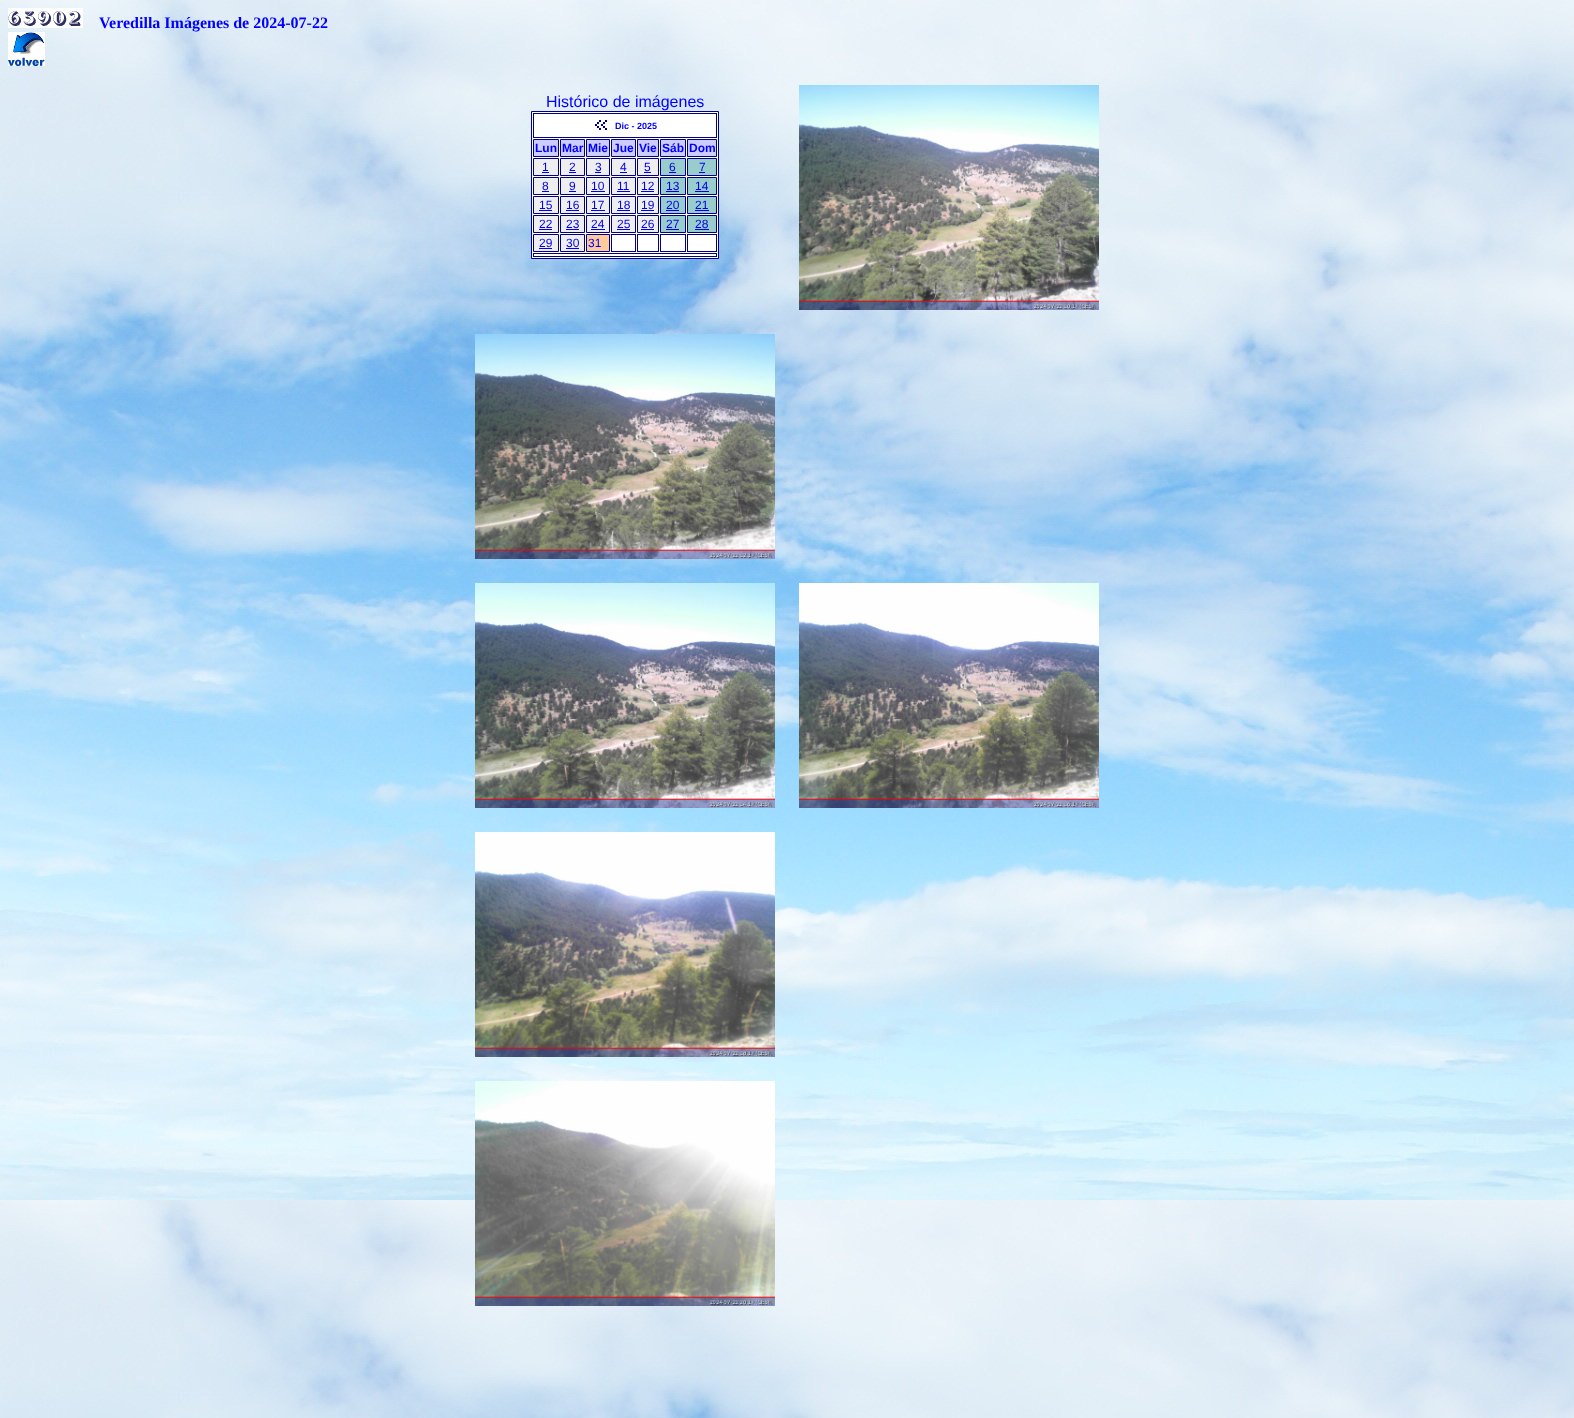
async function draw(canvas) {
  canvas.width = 1574
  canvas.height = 1418
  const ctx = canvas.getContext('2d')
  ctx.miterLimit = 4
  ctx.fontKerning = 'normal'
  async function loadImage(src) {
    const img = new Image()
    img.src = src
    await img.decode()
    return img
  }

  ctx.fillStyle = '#fff'
  ctx.fillRect(0, 0, 1574, 1418)
  ctx.drawImage(await loadImage('image0.png'), 0, 0, 1574, 1418)
  ctx.drawImage(await loadImage('image1.png'), 8, 8, 15, 20)
  ctx.drawImage(await loadImage('image2.png'), 23, 8, 15, 20)
  ctx.drawImage(await loadImage('image3.png'), 38, 8, 15, 20)
  ctx.drawImage(await loadImage('image4.png'), 53, 8, 15, 20)
  ctx.drawImage(await loadImage('image5.png'), 68, 8, 15, 20)
  ctx.font = 'bold 16px Liberation Serif'
  ctx.fillStyle = '#00f'
  ctx.fillText('Veredilla Imágenes de 2024-07-22', 99, 28)
  ctx.drawImage(await loadImage('image6.png'), 8, 32, 37, 34)
  ctx.font = '16px Liberation Sans'
  ctx.fillText('Histórico de imágenes', 546, 107)
  ctx.fillStyle = '#fff'
  ctx.beginPath()
  ctx.rect(531.5, 111.5, 187, 147)
  ctx.fill()
  ctx.strokeStyle = '#000080'
  ctx.stroke()
  ctx.strokeRect(533.5, 113.5, 183, 24)
  ctx.drawImage(await loadImage('image7.png'), 595, 120, 12, 10)
  ctx.font = 'bold 9px Liberation Sans'
  ctx.fillStyle = '#00f'
  ctx.fillText('Dic - 2025', 615, 129)
  ctx.fillStyle = '#ccf'
  ctx.beginPath()
  ctx.rect(533.5, 139.5, 25, 17)
  ctx.fill()
  ctx.stroke()
  ctx.font = 'bold 12px Liberation Sans'
  ctx.fillStyle = '#00f'
  ctx.fillText('Lun', 535, 152)
  ctx.fillStyle = '#ccf'
  ctx.beginPath()
  ctx.rect(560.5, 139.5, 24, 17)
  ctx.fill()
  ctx.stroke()
  ctx.fillStyle = '#00f'
  ctx.fillText('Mar', 562, 152)
  ctx.fillStyle = '#ccf'
  ctx.beginPath()
  ctx.rect(586.5, 139.5, 23, 17)
  ctx.fill()
  ctx.stroke()
  ctx.fillStyle = '#00f'
  ctx.fillText('Mie', 588, 152)
  ctx.fillStyle = '#ccf'
  ctx.beginPath()
  ctx.rect(611.5, 139.5, 24, 17)
  ctx.fill()
  ctx.stroke()
  ctx.fillStyle = '#00f'
  ctx.fillText('Jue', 613, 152)
  ctx.fillStyle = '#ccf'
  ctx.beginPath()
  ctx.rect(637.5, 139.5, 21, 17)
  ctx.fill()
  ctx.stroke()
  ctx.fillStyle = '#00f'
  ctx.fillText('Vie', 639, 152)
  ctx.fillStyle = '#ccf'
  ctx.beginPath()
  ctx.rect(660.5, 139.5, 25, 17)
  ctx.fill()
  ctx.stroke()
  ctx.fillStyle = '#00f'
  ctx.fillText('Sáb', 662, 152)
  ctx.fillStyle = '#ccf'
  ctx.beginPath()
  ctx.rect(687.5, 139.5, 29, 17)
  ctx.fill()
  ctx.stroke()
  ctx.fillStyle = '#00f'
  ctx.fillText('Dom', 689, 152)
  ctx.fillStyle = '#eee'
  ctx.beginPath()
  ctx.rect(533.5, 158.5, 25, 17)
  ctx.fill()
  ctx.stroke()
  ctx.font = '12px Liberation Sans'
  ctx.fillStyle = '#00e'
  ctx.fillText('1', 542, 171)
  ctx.fillRect(542, 172, 7, 1)
  ctx.fillStyle = '#eee'
  ctx.beginPath()
  ctx.rect(560.5, 158.5, 24, 17)
  ctx.fill()
  ctx.stroke()
  ctx.fillStyle = '#00e'
  ctx.fillText('2', 569, 171)
  ctx.fillRect(569, 172, 7, 1)
  ctx.fillStyle = '#eee'
  ctx.beginPath()
  ctx.rect(586.5, 158.5, 23, 17)
  ctx.fill()
  ctx.stroke()
  ctx.fillStyle = '#00e'
  ctx.fillText('3', 595, 171)
  ctx.fillRect(595, 172, 6, 1)
  ctx.fillStyle = '#eee'
  ctx.beginPath()
  ctx.rect(611.5, 158.5, 24, 17)
  ctx.fill()
  ctx.stroke()
  ctx.fillStyle = '#00e'
  ctx.fillText('4', 620, 171)
  ctx.fillRect(620, 172, 7, 1)
  ctx.fillStyle = '#eee'
  ctx.beginPath()
  ctx.rect(637.5, 158.5, 21, 17)
  ctx.fill()
  ctx.stroke()
  ctx.fillStyle = '#00e'
  ctx.fillText('5', 644, 171)
  ctx.fillRect(644, 172, 7, 1)
  ctx.fillStyle = '#9cc'
  ctx.beginPath()
  ctx.rect(660.5, 158.5, 25, 17)
  ctx.fill()
  ctx.stroke()
  ctx.fillStyle = '#00e'
  ctx.fillText('6', 669, 171)
  ctx.fillRect(669, 172, 7, 1)
  ctx.fillStyle = '#9cc'
  ctx.beginPath()
  ctx.rect(687.5, 158.5, 29, 17)
  ctx.fill()
  ctx.stroke()
  ctx.fillStyle = '#00e'
  ctx.fillText('7', 699, 171)
  ctx.fillRect(699, 172, 6, 1)
  ctx.fillStyle = '#eee'
  ctx.beginPath()
  ctx.rect(533.5, 177.5, 25, 17)
  ctx.fill()
  ctx.stroke()
  ctx.fillStyle = '#00e'
  ctx.fillText('8', 542, 190)
  ctx.fillRect(542, 191, 7, 1)
  ctx.fillStyle = '#eee'
  ctx.beginPath()
  ctx.rect(560.5, 177.5, 24, 17)
  ctx.fill()
  ctx.stroke()
  ctx.fillStyle = '#00e'
  ctx.fillText('9', 569, 190)
  ctx.fillRect(569, 191, 7, 1)
  ctx.fillStyle = '#eee'
  ctx.beginPath()
  ctx.rect(586.5, 177.5, 23, 17)
  ctx.fill()
  ctx.stroke()
  ctx.fillStyle = '#00e'
  ctx.fillText('10', 591, 190)
  ctx.fillRect(591, 191, 14, 1)
  ctx.fillStyle = '#eee'
  ctx.beginPath()
  ctx.rect(611.5, 177.5, 24, 17)
  ctx.fill()
  ctx.stroke()
  ctx.fillStyle = '#00e'
  ctx.fillText('11', 617, 190)
  ctx.fillRect(617, 191, 13, 1)
  ctx.fillStyle = '#eee'
  ctx.beginPath()
  ctx.rect(637.5, 177.5, 21, 17)
  ctx.fill()
  ctx.stroke()
  ctx.fillStyle = '#00e'
  ctx.fillText('12', 641, 190)
  ctx.fillRect(641, 191, 13, 1)
  ctx.fillStyle = '#9cc'
  ctx.beginPath()
  ctx.rect(660.5, 177.5, 25, 17)
  ctx.fill()
  ctx.stroke()
  ctx.fillStyle = '#00e'
  ctx.fillText('13', 666, 190)
  ctx.fillRect(666, 191, 13, 1)
  ctx.fillStyle = '#9cc'
  ctx.beginPath()
  ctx.rect(687.5, 177.5, 29, 17)
  ctx.fill()
  ctx.stroke()
  ctx.fillStyle = '#00e'
  ctx.fillText('14', 695, 190)
  ctx.fillRect(695, 191, 14, 1)
  ctx.fillStyle = '#eee'
  ctx.beginPath()
  ctx.rect(533.5, 196.5, 25, 17)
  ctx.fill()
  ctx.stroke()
  ctx.fillStyle = '#00e'
  ctx.fillText('15', 539, 209)
  ctx.fillRect(539, 210, 13, 1)
  ctx.fillStyle = '#eee'
  ctx.beginPath()
  ctx.rect(560.5, 196.5, 24, 17)
  ctx.fill()
  ctx.stroke()
  ctx.fillStyle = '#00e'
  ctx.fillText('16', 566, 209)
  ctx.fillRect(566, 210, 13, 1)
  ctx.fillStyle = '#eee'
  ctx.beginPath()
  ctx.rect(586.5, 196.5, 23, 17)
  ctx.fill()
  ctx.stroke()
  ctx.fillStyle = '#00e'
  ctx.fillText('17', 591, 209)
  ctx.fillRect(591, 210, 14, 1)
  ctx.fillStyle = '#eee'
  ctx.beginPath()
  ctx.rect(611.5, 196.5, 24, 17)
  ctx.fill()
  ctx.stroke()
  ctx.fillStyle = '#00e'
  ctx.fillText('18', 617, 209)
  ctx.fillRect(617, 210, 13, 1)
  ctx.fillStyle = '#eee'
  ctx.beginPath()
  ctx.rect(637.5, 196.5, 21, 17)
  ctx.fill()
  ctx.stroke()
  ctx.fillStyle = '#00e'
  ctx.fillText('19', 641, 209)
  ctx.fillRect(641, 210, 13, 1)
  ctx.fillStyle = '#9cc'
  ctx.beginPath()
  ctx.rect(660.5, 196.5, 25, 17)
  ctx.fill()
  ctx.stroke()
  ctx.fillStyle = '#00e'
  ctx.fillText('20', 666, 209)
  ctx.fillRect(666, 210, 13, 1)
  ctx.fillStyle = '#9cc'
  ctx.beginPath()
  ctx.rect(687.5, 196.5, 29, 17)
  ctx.fill()
  ctx.stroke()
  ctx.fillStyle = '#00e'
  ctx.fillText('21', 695, 209)
  ctx.fillRect(695, 210, 14, 1)
  ctx.fillStyle = '#eee'
  ctx.beginPath()
  ctx.rect(533.5, 215.5, 25, 17)
  ctx.fill()
  ctx.stroke()
  ctx.fillStyle = '#00e'
  ctx.fillText('22', 539, 228)
  ctx.fillRect(539, 229, 13, 1)
  ctx.fillStyle = '#eee'
  ctx.beginPath()
  ctx.rect(560.5, 215.5, 24, 17)
  ctx.fill()
  ctx.stroke()
  ctx.fillStyle = '#00e'
  ctx.fillText('23', 566, 228)
  ctx.fillRect(566, 229, 13, 1)
  ctx.fillStyle = '#eee'
  ctx.beginPath()
  ctx.rect(586.5, 215.5, 23, 17)
  ctx.fill()
  ctx.stroke()
  ctx.fillStyle = '#00e'
  ctx.fillText('24', 591, 228)
  ctx.fillRect(591, 229, 14, 1)
  ctx.fillStyle = '#eee'
  ctx.beginPath()
  ctx.rect(611.5, 215.5, 24, 17)
  ctx.fill()
  ctx.stroke()
  ctx.fillStyle = '#00e'
  ctx.fillText('25', 617, 228)
  ctx.fillRect(617, 229, 13, 1)
  ctx.fillStyle = '#eee'
  ctx.beginPath()
  ctx.rect(637.5, 215.5, 21, 17)
  ctx.fill()
  ctx.stroke()
  ctx.fillStyle = '#00e'
  ctx.fillText('26', 641, 228)
  ctx.fillRect(641, 229, 13, 1)
  ctx.fillStyle = '#9cc'
  ctx.beginPath()
  ctx.rect(660.5, 215.5, 25, 17)
  ctx.fill()
  ctx.stroke()
  ctx.fillStyle = '#00e'
  ctx.fillText('27', 666, 228)
  ctx.fillRect(666, 229, 13, 1)
  ctx.fillStyle = '#9cc'
  ctx.beginPath()
  ctx.rect(687.5, 215.5, 29, 17)
  ctx.fill()
  ctx.stroke()
  ctx.fillStyle = '#00e'
  ctx.fillText('28', 695, 228)
  ctx.fillRect(695, 229, 14, 1)
  ctx.fillStyle = '#eee'
  ctx.beginPath()
  ctx.rect(533.5, 234.5, 25, 17)
  ctx.fill()
  ctx.stroke()
  ctx.fillStyle = '#00e'
  ctx.fillText('29', 539, 247)
  ctx.fillRect(539, 248, 13, 1)
  ctx.fillStyle = '#eee'
  ctx.beginPath()
  ctx.rect(560.5, 234.5, 24, 17)
  ctx.fill()
  ctx.stroke()
  ctx.fillStyle = '#00e'
  ctx.fillText('30', 566, 247)
  ctx.fillRect(566, 248, 13, 1)
  ctx.fillStyle = '#fc9'
  ctx.beginPath()
  ctx.rect(586.5, 234.5, 23, 17)
  ctx.fill()
  ctx.stroke()
  ctx.fillStyle = '#00f'
  ctx.fillText('31', 588, 247)
  ctx.strokeRect(611.5, 234.5, 24, 17)
  ctx.strokeRect(637.5, 234.5, 21, 17)
  ctx.strokeRect(660.5, 234.5, 25, 17)
  ctx.strokeRect(687.5, 234.5, 29, 17)
  ctx.strokeRect(533.5, 253.5, 183, 3)
  ctx.drawImage(await loadImage('image8.png'), 799, 85, 300, 225)
  ctx.drawImage(await loadImage('image9.png'), 475, 334, 300, 225)
  ctx.drawImage(await loadImage('image10.png'), 475, 583, 300, 225)
  ctx.drawImage(await loadImage('image11.png'), 799, 583, 300, 225)
  ctx.drawImage(await loadImage('image12.png'), 475, 832, 300, 225)
  ctx.drawImage(await loadImage('image13.png'), 475, 1081, 300, 225)
}

draw(document.querySelector('canvas'))
